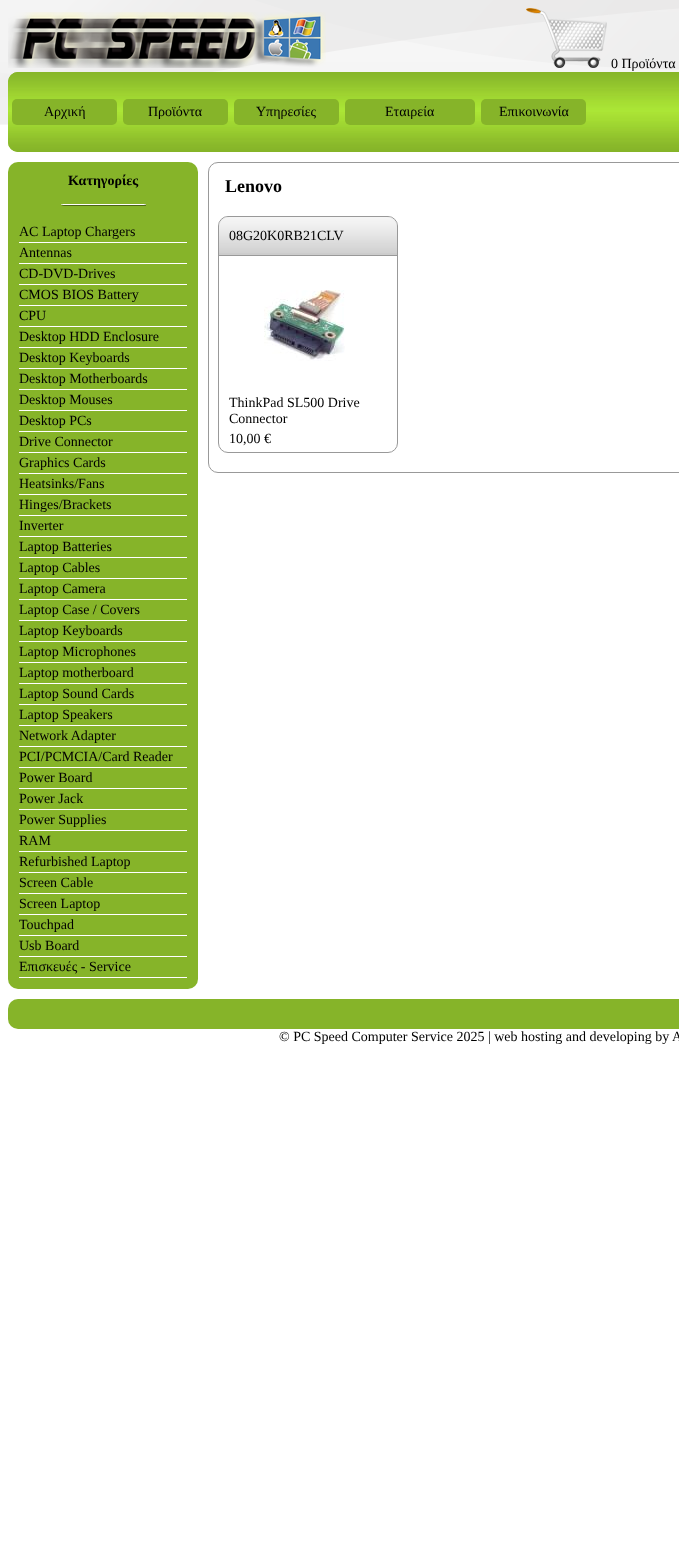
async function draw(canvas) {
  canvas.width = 679
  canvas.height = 1551
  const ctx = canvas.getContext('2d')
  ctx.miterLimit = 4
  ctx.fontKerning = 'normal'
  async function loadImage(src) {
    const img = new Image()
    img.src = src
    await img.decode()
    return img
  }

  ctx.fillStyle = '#fff'
  ctx.fillRect(0, 0, 679, 1551)
  ctx.drawImage(await loadImage('image0.png'), 0, 0, 679, 125)
  ctx.drawImage(await loadImage('image1.png'), 8, 12, 318, 56)
  ctx.drawImage(await loadImage('image2.png'), 526, 8, 81, 60)
  ctx.font = '14px Liberation Serif'
  ctx.fillStyle = '#000'
  ctx.fillText('0 Προϊόντα', 611, 68)
  ctx.fillStyle = '#86b429'
  ctx.beginPath()
  ctx.roundRect(8, 72, 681, 80, 10)
  ctx.fill()
  ctx.drawImage(await loadImage('image3.png'), 8, 72, 671, 80)
  ctx.beginPath()
  ctx.roundRect(12, 99, 105, 26, 5)
  ctx.fill()
  ctx.fillStyle = '#000'
  ctx.fillText('Αρχική', 44, 116)
  ctx.fillStyle = '#86b429'
  ctx.beginPath()
  ctx.roundRect(123, 99, 105, 26, 5)
  ctx.fill()
  ctx.fillStyle = '#000'
  ctx.fillText('Προϊόντα', 148, 116)
  ctx.fillStyle = '#86b429'
  ctx.beginPath()
  ctx.roundRect(234, 99, 105, 26, 5)
  ctx.fill()
  ctx.fillStyle = '#000'
  ctx.fillText('Υπηρεσίες', 256, 116)
  ctx.fillStyle = '#86b429'
  ctx.beginPath()
  ctx.roundRect(345, 99, 130, 26, 5)
  ctx.fill()
  ctx.fillStyle = '#000'
  ctx.fillText('Εταιρεία', 385, 116)
  ctx.fillStyle = '#86b429'
  ctx.beginPath()
  ctx.roundRect(481, 99, 105, 26, 5)
  ctx.fill()
  ctx.fillStyle = '#000'
  ctx.fillText('Επικοινωνία', 499, 116)
  ctx.fillStyle = '#86b429'
  ctx.beginPath()
  ctx.roundRect(8, 162, 190, 827, 10)
  ctx.fill()
  ctx.font = 'bold 14px Liberation Serif'
  ctx.fillStyle = '#000'
  ctx.fillText('Κατηγορίες', 68, 185)
  ctx.drawImage(await loadImage('image4.png'), 61, 204, 85, 2)
  ctx.fillStyle = '#fff'
  ctx.fillRect(19, 242, 168, 1)
  ctx.font = '14px Liberation Serif'
  ctx.fillStyle = '#000'
  ctx.fillText('AC Laptop Chargers', 19, 236)
  ctx.fillStyle = '#fff'
  ctx.fillRect(19, 263, 168, 1)
  ctx.fillStyle = '#000'
  ctx.fillText('Antennas', 19, 257)
  ctx.fillStyle = '#fff'
  ctx.fillRect(19, 284, 168, 1)
  ctx.fillStyle = '#000'
  ctx.fillText('CD-DVD-Drives', 19, 278)
  ctx.fillStyle = '#fff'
  ctx.fillRect(19, 305, 168, 1)
  ctx.fillStyle = '#000'
  ctx.fillText('CMOS BIOS Battery', 19, 299)
  ctx.fillStyle = '#fff'
  ctx.fillRect(19, 326, 168, 1)
  ctx.fillStyle = '#000'
  ctx.fillText('CPU', 19, 320)
  ctx.fillStyle = '#fff'
  ctx.fillRect(19, 347, 168, 1)
  ctx.fillStyle = '#000'
  ctx.fillText('Desktop HDD Enclosure', 19, 341)
  ctx.fillStyle = '#fff'
  ctx.fillRect(19, 368, 168, 1)
  ctx.fillStyle = '#000'
  ctx.fillText('Desktop Keyboards', 19, 362)
  ctx.fillStyle = '#fff'
  ctx.fillRect(19, 389, 168, 1)
  ctx.fillStyle = '#000'
  ctx.fillText('Desktop Motherboards', 19, 383)
  ctx.fillStyle = '#fff'
  ctx.fillRect(19, 410, 168, 1)
  ctx.fillStyle = '#000'
  ctx.fillText('Desktop Mouses', 19, 404)
  ctx.fillStyle = '#fff'
  ctx.fillRect(19, 431, 168, 1)
  ctx.fillStyle = '#000'
  ctx.fillText('Desktop PCs', 19, 425)
  ctx.fillStyle = '#fff'
  ctx.fillRect(19, 452, 168, 1)
  ctx.fillStyle = '#000'
  ctx.fillText('Drive Connector', 19, 446)
  ctx.fillStyle = '#fff'
  ctx.fillRect(19, 473, 168, 1)
  ctx.fillStyle = '#000'
  ctx.fillText('Graphics Cards', 19, 467)
  ctx.fillStyle = '#fff'
  ctx.fillRect(19, 494, 168, 1)
  ctx.fillStyle = '#000'
  ctx.fillText('Heatsinks/Fans', 19, 488)
  ctx.fillStyle = '#fff'
  ctx.fillRect(19, 515, 168, 1)
  ctx.fillStyle = '#000'
  ctx.fillText('Hinges/Brackets', 19, 509)
  ctx.fillStyle = '#fff'
  ctx.fillRect(19, 536, 168, 1)
  ctx.fillStyle = '#000'
  ctx.fillText('Inverter', 19, 530)
  ctx.fillStyle = '#fff'
  ctx.fillRect(19, 557, 168, 1)
  ctx.fillStyle = '#000'
  ctx.fillText('Laptop Batteries', 19, 551)
  ctx.fillStyle = '#fff'
  ctx.fillRect(19, 578, 168, 1)
  ctx.fillStyle = '#000'
  ctx.fillText('Laptop Cables', 19, 572)
  ctx.fillStyle = '#fff'
  ctx.fillRect(19, 599, 168, 1)
  ctx.fillStyle = '#000'
  ctx.fillText('Laptop Camera', 19, 593)
  ctx.fillStyle = '#fff'
  ctx.fillRect(19, 620, 168, 1)
  ctx.fillStyle = '#000'
  ctx.fillText('Laptop Case / Covers', 19, 614)
  ctx.fillStyle = '#fff'
  ctx.fillRect(19, 641, 168, 1)
  ctx.fillStyle = '#000'
  ctx.fillText('Laptop Keyboards', 19, 635)
  ctx.fillStyle = '#fff'
  ctx.fillRect(19, 662, 168, 1)
  ctx.fillStyle = '#000'
  ctx.fillText('Laptop Microphones', 19, 656)
  ctx.fillStyle = '#fff'
  ctx.fillRect(19, 683, 168, 1)
  ctx.fillStyle = '#000'
  ctx.fillText('Laptop motherboard', 19, 677)
  ctx.fillStyle = '#fff'
  ctx.fillRect(19, 704, 168, 1)
  ctx.fillStyle = '#000'
  ctx.fillText('Laptop Sound Cards', 19, 698)
  ctx.fillStyle = '#fff'
  ctx.fillRect(19, 725, 168, 1)
  ctx.fillStyle = '#000'
  ctx.fillText('Laptop Speakers', 19, 719)
  ctx.fillStyle = '#fff'
  ctx.fillRect(19, 746, 168, 1)
  ctx.fillStyle = '#000'
  ctx.fillText('Network Adapter', 19, 740)
  ctx.fillStyle = '#fff'
  ctx.fillRect(19, 767, 168, 1)
  ctx.fillStyle = '#000'
  ctx.fillText('PCI/PCMCIA/Card Reader', 19, 761)
  ctx.fillStyle = '#fff'
  ctx.fillRect(19, 788, 168, 1)
  ctx.fillStyle = '#000'
  ctx.fillText('Power Board', 19, 782)
  ctx.fillStyle = '#fff'
  ctx.fillRect(19, 809, 168, 1)
  ctx.fillStyle = '#000'
  ctx.fillText('Power Jack', 19, 803)
  ctx.fillStyle = '#fff'
  ctx.fillRect(19, 830, 168, 1)
  ctx.fillStyle = '#000'
  ctx.fillText('Power Supplies', 19, 824)
  ctx.fillStyle = '#fff'
  ctx.fillRect(19, 851, 168, 1)
  ctx.fillStyle = '#000'
  ctx.fillText('RAM', 19, 845)
  ctx.fillStyle = '#fff'
  ctx.fillRect(19, 872, 168, 1)
  ctx.fillStyle = '#000'
  ctx.fillText('Refurbished Laptop', 19, 866)
  ctx.fillStyle = '#fff'
  ctx.fillRect(19, 893, 168, 1)
  ctx.fillStyle = '#000'
  ctx.fillText('Screen Cable', 19, 887)
  ctx.fillStyle = '#fff'
  ctx.fillRect(19, 914, 168, 1)
  ctx.fillStyle = '#000'
  ctx.fillText('Screen Laptop', 19, 908)
  ctx.fillStyle = '#fff'
  ctx.fillRect(19, 935, 168, 1)
  ctx.fillStyle = '#000'
  ctx.fillText('Touchpad', 19, 929)
  ctx.fillStyle = '#fff'
  ctx.fillRect(19, 956, 168, 1)
  ctx.fillStyle = '#000'
  ctx.fillText('Usb Board', 19, 950)
  ctx.fillStyle = '#fff'
  ctx.fillRect(19, 977, 168, 1)
  ctx.fillStyle = '#000'
  ctx.fillText('Επισκευές - Service', 19, 971)
  ctx.beginPath()
  ctx.roundRect(208.5, 162.5, 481, 310, 9.5)
  ctx.strokeStyle = '#999'
  ctx.stroke()
  ctx.font = 'bold 18px Liberation Serif'
  ctx.fillText('Lenovo', 225, 192)
  ctx.beginPath()
  ctx.roundRect(218.5, 216.5, 179, 236, 9.5)
  ctx.stroke()
  ctx.fillStyle = '#ccc'
  ctx.beginPath()
  ctx.roundRect(219, 217, 178, 39, [10, 10, 0, 0])
  ctx.fill()
  ctx.drawImage(await loadImage('image5.png'), 219, 217, 178, 36)
  ctx.fillStyle = '#999'
  ctx.fillRect(219, 255, 178, 1)
  ctx.font = '14px Liberation Serif'
  ctx.fillStyle = '#000'
  ctx.fillText('08G20K0RB21CLV', 229, 240)
  ctx.drawImage(await loadImage('image6.png'), 264, 290, 81, 71)
  ctx.fillText('ThinkPad SL500 Drive', 229, 407)
  ctx.fillText('Connector', 229, 423)
  ctx.fillText('10,00 €', 229, 443)
  ctx.fillStyle = '#86b429'
  ctx.beginPath()
  ctx.roundRect(8, 999, 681, 30, 10)
  ctx.fill()
  ctx.fillStyle = '#000'
  ctx.fillText('© PC Speed Computer Service 2025 | web hosting and developing by A', 279, 1041)
}

draw(document.querySelector('canvas'))
